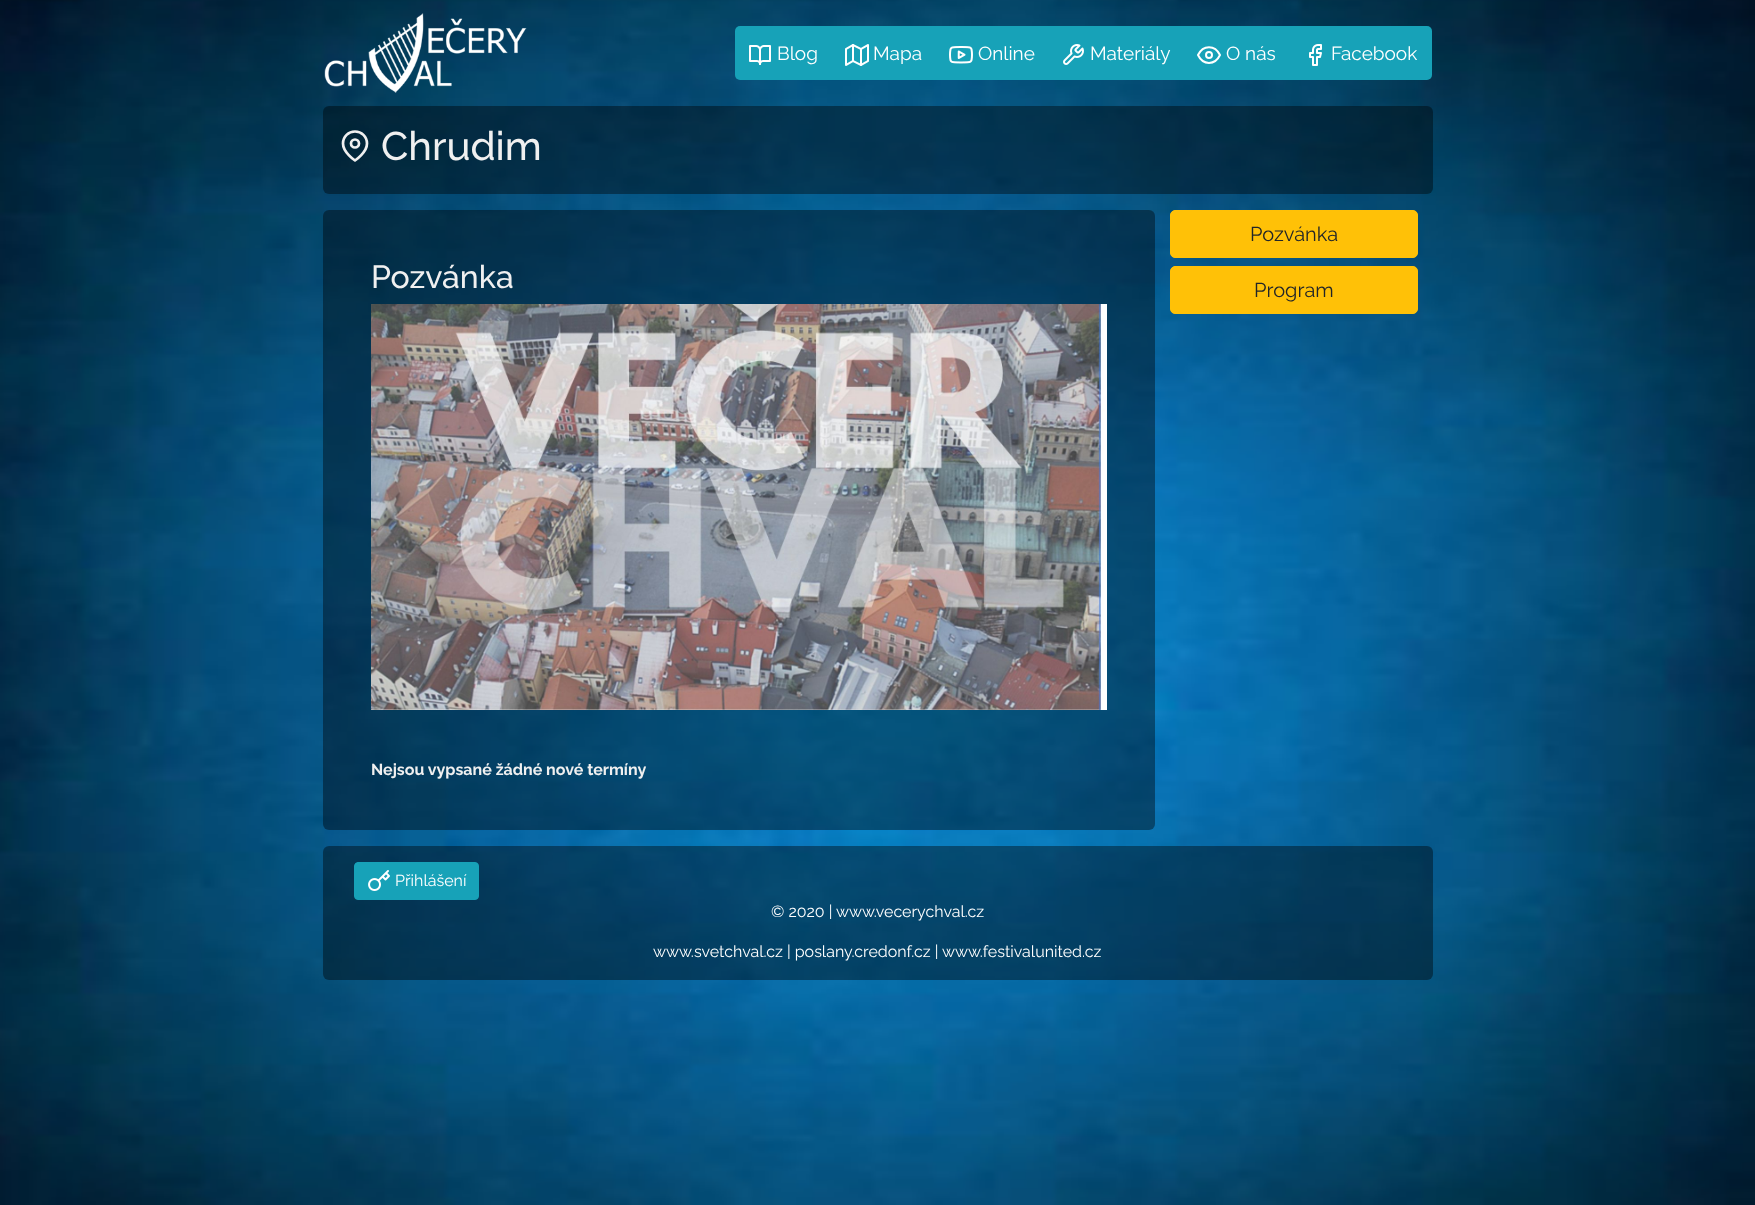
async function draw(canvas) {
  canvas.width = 1755
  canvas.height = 1205
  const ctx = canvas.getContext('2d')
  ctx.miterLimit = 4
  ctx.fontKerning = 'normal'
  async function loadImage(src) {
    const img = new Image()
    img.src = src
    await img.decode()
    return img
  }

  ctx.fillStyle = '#fff'
  ctx.fillRect(0, 0, 1755, 1205)
  ctx.drawImage(await loadImage('image0.png'), 0, 0, 1755, 1205)
  ctx.drawImage(await loadImage('image1.png'), 324, 13, 203, 80)
  ctx.fillStyle = '#17a2b8'
  ctx.beginPath()
  ctx.roundRect(735, 26, 697, 54, 5)
  ctx.fill()
  ctx.drawImage(await loadImage('image2.png'), 749, 45, 22, 20)
  ctx.font = '19px Raleway'
  ctx.fillStyle = '#fff'
  ctx.fillText('Blog', 777, 60)
  ctx.drawImage(await loadImage('image3.png'), 845, 44, 24, 22)
  ctx.fillText('Mapa', 873, 60)
  ctx.drawImage(await loadImage('image4.png'), 949, 46, 24, 18)
  ctx.fillText('Online', 978, 60)
  ctx.drawImage(await loadImage('image5.png'), 1063, 44, 21, 21)
  ctx.fillText('Materiály', 1090, 60)
  ctx.beginPath()
  ctx.moveTo(1198, 55)
  ctx.bezierCurveTo(1203, 44.5, 1215, 44.5, 1220, 55)
  ctx.bezierCurveTo(1215, 65.5, 1203, 65.5, 1198, 55)
  ctx.closePath()
  ctx.strokeStyle = '#fff'
  ctx.lineWidth = 2
  ctx.lineCap = 'round'
  ctx.lineJoin = 'round'
  ctx.stroke()
  ctx.fillText('O nás', 1226, 60)
  ctx.beginPath()
  ctx.arc(1209, 55, 3, 0, 2 * Math.PI)
  ctx.stroke()
  ctx.drawImage(await loadImage('image6.png'), 1309, 44, 13, 22)
  ctx.fillText('Facebook', 1331, 60)
  ctx.fillStyle = '#00000066'
  ctx.beginPath()
  ctx.roundRect(323, 106, 1110, 88, 6)
  ctx.fill()
  ctx.beginPath()
  ctx.moveTo(367, 143.5)
  ctx.bezierCurveTo(367, 152.5, 355, 160.5, 355, 160.5)
  ctx.bezierCurveTo(355, 160.5, 343, 152.5, 343, 143.5)
  ctx.bezierCurveTo(343, 136.5, 348.5, 131.5, 355, 131.5)
  ctx.bezierCurveTo(361.5, 131.5, 367, 136.5, 367, 143.5)
  ctx.closePath()
  ctx.strokeStyle = '#f0f0f0'
  ctx.lineWidth = 2.7
  ctx.stroke()
  ctx.font = '500 40px Raleway'
  ctx.fillStyle = '#f0f0f0'
  ctx.fillText('Chrudim', 381, 160)
  ctx.beginPath()
  ctx.arc(355, 143.5, 4, 0, 2 * Math.PI)
  ctx.stroke()
  ctx.fillStyle = '#00000066'
  ctx.beginPath()
  ctx.roundRect(323, 210, 832, 620, 6)
  ctx.fill()
  ctx.font = '500 32px Raleway'
  ctx.fillStyle = '#f0f0f0'
  ctx.fillText('Pozvánka', 371, 288)
  ctx.drawImage(await loadImage('image7.png'), 371, 304, 736, 406)
  ctx.font = 'bold 16px Raleway'
  ctx.fillText('Nejsou vypsané žádné nové termíny', 371, 775)
  ctx.fillStyle = '#ffc107'
  ctx.beginPath()
  ctx.roundRect(1170.5, 210.5, 247, 47, 4.5)
  ctx.fill()
  ctx.strokeStyle = '#ffc107'
  ctx.lineWidth = 1
  ctx.lineJoin = 'miter'
  ctx.stroke()
  ctx.font = '20px Raleway'
  ctx.fillStyle = '#212529'
  ctx.fillText('Pozvánka', 1250, 241)
  ctx.fillStyle = '#ffc107'
  ctx.beginPath()
  ctx.roundRect(1170.5, 266.5, 247, 47, 4.5)
  ctx.fill()
  ctx.stroke()
  ctx.fillStyle = '#212529'
  ctx.fillText('Program', 1254, 297)
  ctx.fillStyle = '#00000066'
  ctx.beginPath()
  ctx.roundRect(323, 846, 1110, 134, 6)
  ctx.fill()
  ctx.fillStyle = '#17a2b8'
  ctx.beginPath()
  ctx.roundRect(354.5, 862.5, 124, 37, 3.5)
  ctx.fill()
  ctx.strokeStyle = '#17a2b8'
  ctx.stroke()
  ctx.drawImage(await loadImage('image8.png'), 368, 870, 22, 21)
  ctx.font = '16px Raleway'
  ctx.fillStyle = '#fff'
  ctx.fillText('Přihlášení', 395, 886)
  ctx.fillText('© 2020 |', 771, 917)
  ctx.fillText('www.vecerychval.cz', 836, 917)
  ctx.fillText('www.svetchval.cz | poslany.credonf.cz | www.festivalunited.cz', 653, 957)
}

draw(document.querySelector('canvas'))
